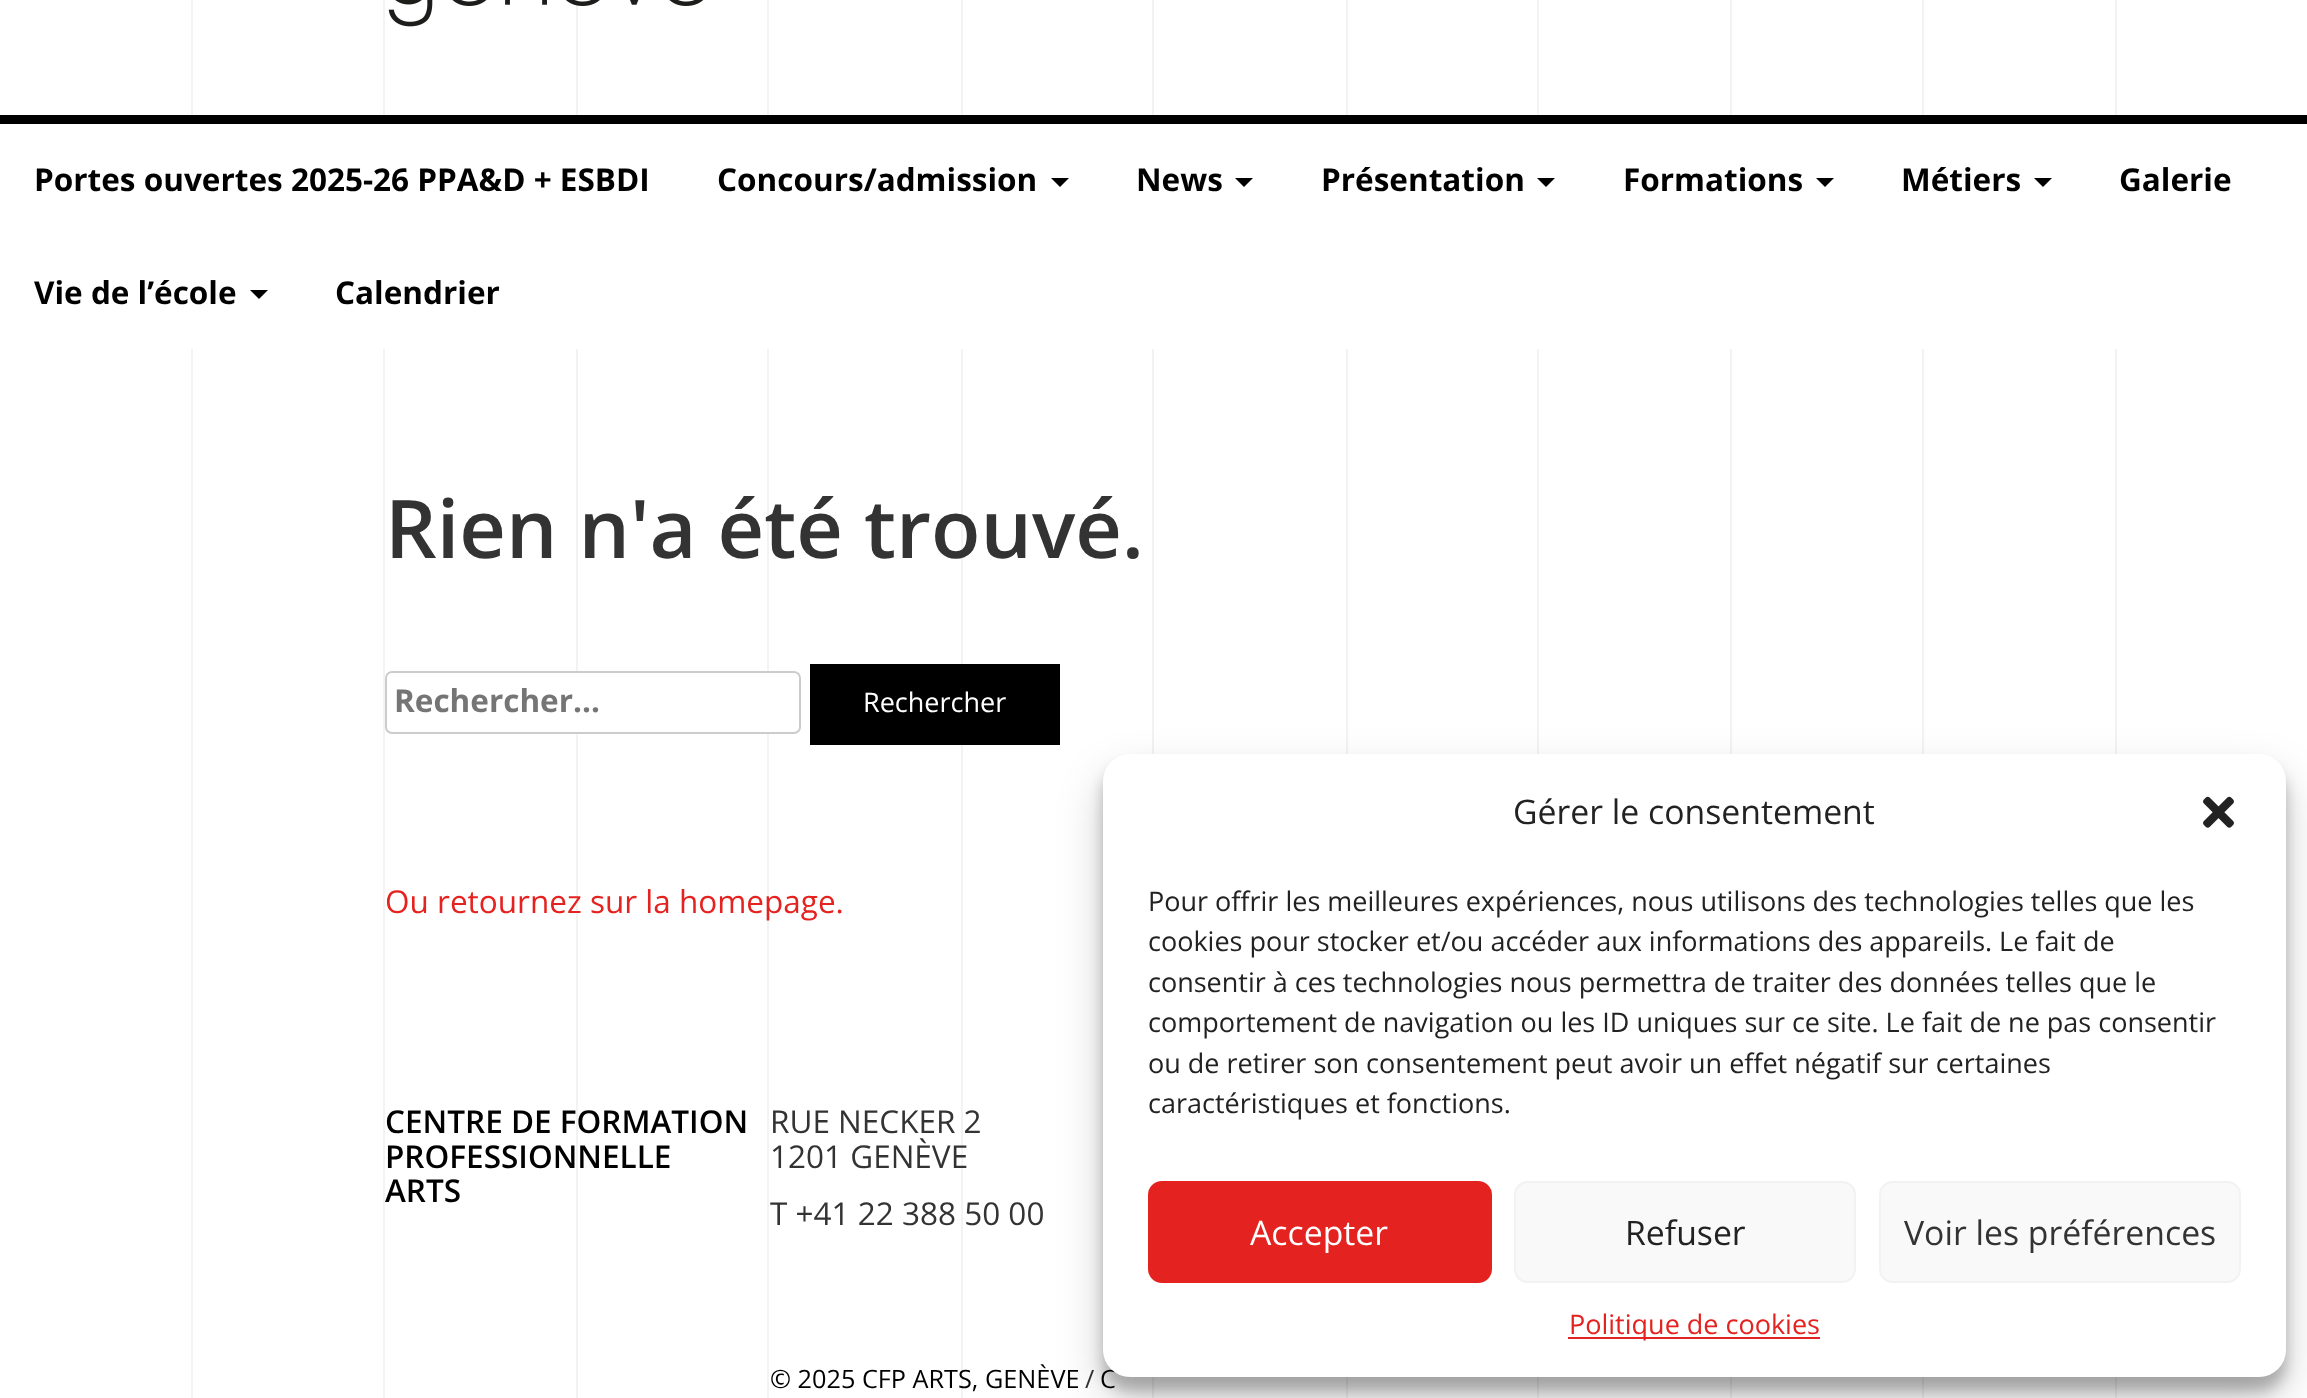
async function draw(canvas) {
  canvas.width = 2307
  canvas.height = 1398
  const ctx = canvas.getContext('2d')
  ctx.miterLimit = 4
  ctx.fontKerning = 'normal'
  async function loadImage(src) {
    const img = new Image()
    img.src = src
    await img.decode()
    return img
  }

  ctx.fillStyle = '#fff'
  ctx.fillRect(0, 0, 2307, 1398)
  ctx.fillStyle = '#f3f3f3'
  ctx.fillRect(191, 0, 2, 1398)
  ctx.fillRect(383, 0, 2, 1398)
  ctx.fillRect(576, 0, 2, 1398)
  ctx.fillRect(767, 0, 2, 1398)
  ctx.fillRect(961, 0, 2, 1398)
  ctx.fillRect(1152, 0, 2, 1398)
  ctx.fillRect(1346, 0, 2, 1398)
  ctx.fillRect(1537, 0, 2, 1398)
  ctx.fillRect(1730, 0, 2, 1398)
  ctx.fillRect(1922, 0, 2, 1398)
  ctx.fillRect(2115, 0, 2, 1398)
  ctx.drawImage(await loadImage('image0.png'), 388, 0, 316, 27)
  ctx.fillStyle = '#fff'
  ctx.fillRect(191, 124, 1926, 225)
  ctx.fillStyle = '#000'
  ctx.fillRect(0, 115, 2307, 9)
  ctx.font = 'bold 31.5px Open Sans'
  ctx.fillText('Portes ouvertes 2025-26 PPA&D + ESBDI', 34, 191)
  ctx.fillText('Concours/admission', 717, 191)
  ctx.beginPath()
  ctx.moveTo(1051, 178)
  ctx.lineTo(1069, 178)
  ctx.lineTo(1060, 187)
  ctx.closePath()
  ctx.fill()
  ctx.fillText('News', 1136, 191)
  ctx.beginPath()
  ctx.moveTo(1235, 178)
  ctx.lineTo(1253, 178)
  ctx.lineTo(1244, 187)
  ctx.closePath()
  ctx.fill()
  ctx.fillText('Présentation', 1321, 191)
  ctx.beginPath()
  ctx.moveTo(1537, 178)
  ctx.lineTo(1555, 178)
  ctx.lineTo(1546, 187)
  ctx.closePath()
  ctx.fill()
  ctx.fillText('Formations', 1623, 191)
  ctx.beginPath()
  ctx.moveTo(1816, 178)
  ctx.lineTo(1834, 178)
  ctx.lineTo(1825, 187)
  ctx.closePath()
  ctx.fill()
  ctx.fillText('Métiers', 1901, 191)
  ctx.beginPath()
  ctx.moveTo(2034, 178)
  ctx.lineTo(2052, 178)
  ctx.lineTo(2043, 187)
  ctx.closePath()
  ctx.fill()
  ctx.fillText('Galerie', 2119, 191)
  ctx.fillText('Vie de l’école', 34, 304)
  ctx.beginPath()
  ctx.moveTo(250, 290)
  ctx.lineTo(268, 290)
  ctx.lineTo(259, 299)
  ctx.closePath()
  ctx.fill()
  ctx.fillText('Calendrier', 335, 304)
  ctx.font = '600 81px Open Sans'
  ctx.fillStyle = '#333'
  ctx.fillText('Rien n\'a été trouvé.', 385, 558)
  ctx.fillStyle = '#fff'
  ctx.beginPath()
  ctx.roundRect(386, 672, 414, 61, 6)
  ctx.fill()
  ctx.strokeStyle = '#ccc'
  ctx.lineWidth = 2
  ctx.stroke()
  ctx.font = 'bold 31.5px Open Sans'
  ctx.fillStyle = '#757575'
  ctx.fillText('Rechercher…', 394, 712)
  ctx.fillStyle = '#000'
  ctx.fillRect(810, 664, 250, 81)
  ctx.font = '27px Open Sans'
  ctx.fillStyle = '#fff'
  ctx.fillText('Rechercher', 863, 712)
  ctx.font = '31.5px Open Sans'
  ctx.fillStyle = '#e42320'
  ctx.fillText('Ou retournez sur la homepage.', 385, 913)
  ctx.font = '600 31.5px Open Sans'
  ctx.fillStyle = '#000'
  ctx.fillText('CENTRE DE FORMATION', 385, 1133)
  ctx.fillText('PROFESSIONNELLE', 385, 1168)
  ctx.fillText('ARTS', 385, 1202)
  ctx.font = '31.5px Open Sans'
  ctx.fillStyle = '#333'
  ctx.fillText('RUE NECKER 2', 770, 1133)
  ctx.fillText('1201 GENÈVE', 770, 1168)
  ctx.fillText('T +41 22 388 50 00', 770, 1225)
  ctx.font = '25.25px Open Sans'
  ctx.fillStyle = '#000'
  ctx.fillText('© 2025 CFP ARTS, GENÈVE', 770, 1388)
  ctx.fillStyle = '#333'
  ctx.fillText('/', 1085, 1388)
  ctx.fillStyle = '#000'
  ctx.fillText('C', 1100, 1388)
  ctx.fillStyle = '#0000003b'
  ctx.filter = 'blur(7px)'
  ctx.beginPath()
  ctx.roundRect(1103, 767, 1183, 624, 27)
  ctx.fill()
  ctx.filter = 'none'
  ctx.fillStyle = '#00000030'
  ctx.filter = 'blur(22.5px)'
  ctx.beginPath()
  ctx.roundRect(1103, 776, 1183, 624, 27)
  ctx.fill()
  ctx.filter = 'none'
  ctx.fillStyle = '#fff'
  ctx.beginPath()
  ctx.roundRect(1103, 754, 1183, 623, 27)
  ctx.fill()
  ctx.font = '33.75px Open Sans'
  ctx.fillStyle = '#222'
  ctx.fillText('Gérer le consentement', 1513, 824)
  ctx.drawImage(await loadImage('image1.png'), 2203, 796, 31, 32)
  ctx.font = '27px Open Sans'
  ctx.fillText('Pour offrir les meilleures expériences, nous utilisons des technologies telles que les', 1148, 911)
  ctx.fillText('cookies pour stocker et/ou accéder aux informations des appareils. Le fait de', 1148, 951)
  ctx.fillText('consentir à ces technologies nous permettra de traiter des données telles que le', 1148, 992)
  ctx.fillText('comportement de navigation ou les ID uniques sur ce site. Le fait de ne pas consentir', 1148, 1032)
  ctx.fillText('ou de retirer son consentement peut avoir un effet négatif sur certaines', 1148, 1073)
  ctx.fillText('caractéristiques et fonctions.', 1148, 1113)
  ctx.fillStyle = '#e42320'
  ctx.beginPath()
  ctx.roundRect(1149, 1182, 342, 100, 13)
  ctx.fill()
  ctx.strokeStyle = '#e42320'
  ctx.stroke()
  ctx.font = '33.75px Open Sans'
  ctx.fillStyle = '#fff'
  ctx.fillText('Accepter', 1250, 1245)
  ctx.fillStyle = '#f9f9f9'
  ctx.beginPath()
  ctx.roundRect(1515, 1182, 340, 100, 13)
  ctx.fill()
  ctx.strokeStyle = '#f2f2f2'
  ctx.stroke()
  ctx.fillStyle = '#222'
  ctx.fillText('Refuser', 1625, 1245)
  ctx.fillStyle = '#f9f9f9'
  ctx.beginPath()
  ctx.roundRect(1880, 1182, 360, 100, 13)
  ctx.fill()
  ctx.stroke()
  ctx.fillStyle = '#333'
  ctx.fillText('Voir les préférences', 1904, 1245)
  ctx.fillStyle = '#e42320'
  ctx.fillRect(1568, 1337, 252, 2)
  ctx.font = '27px Open Sans'
  ctx.fillText('Politique de cookies', 1569, 1334)
}

draw(document.querySelector('canvas'))
